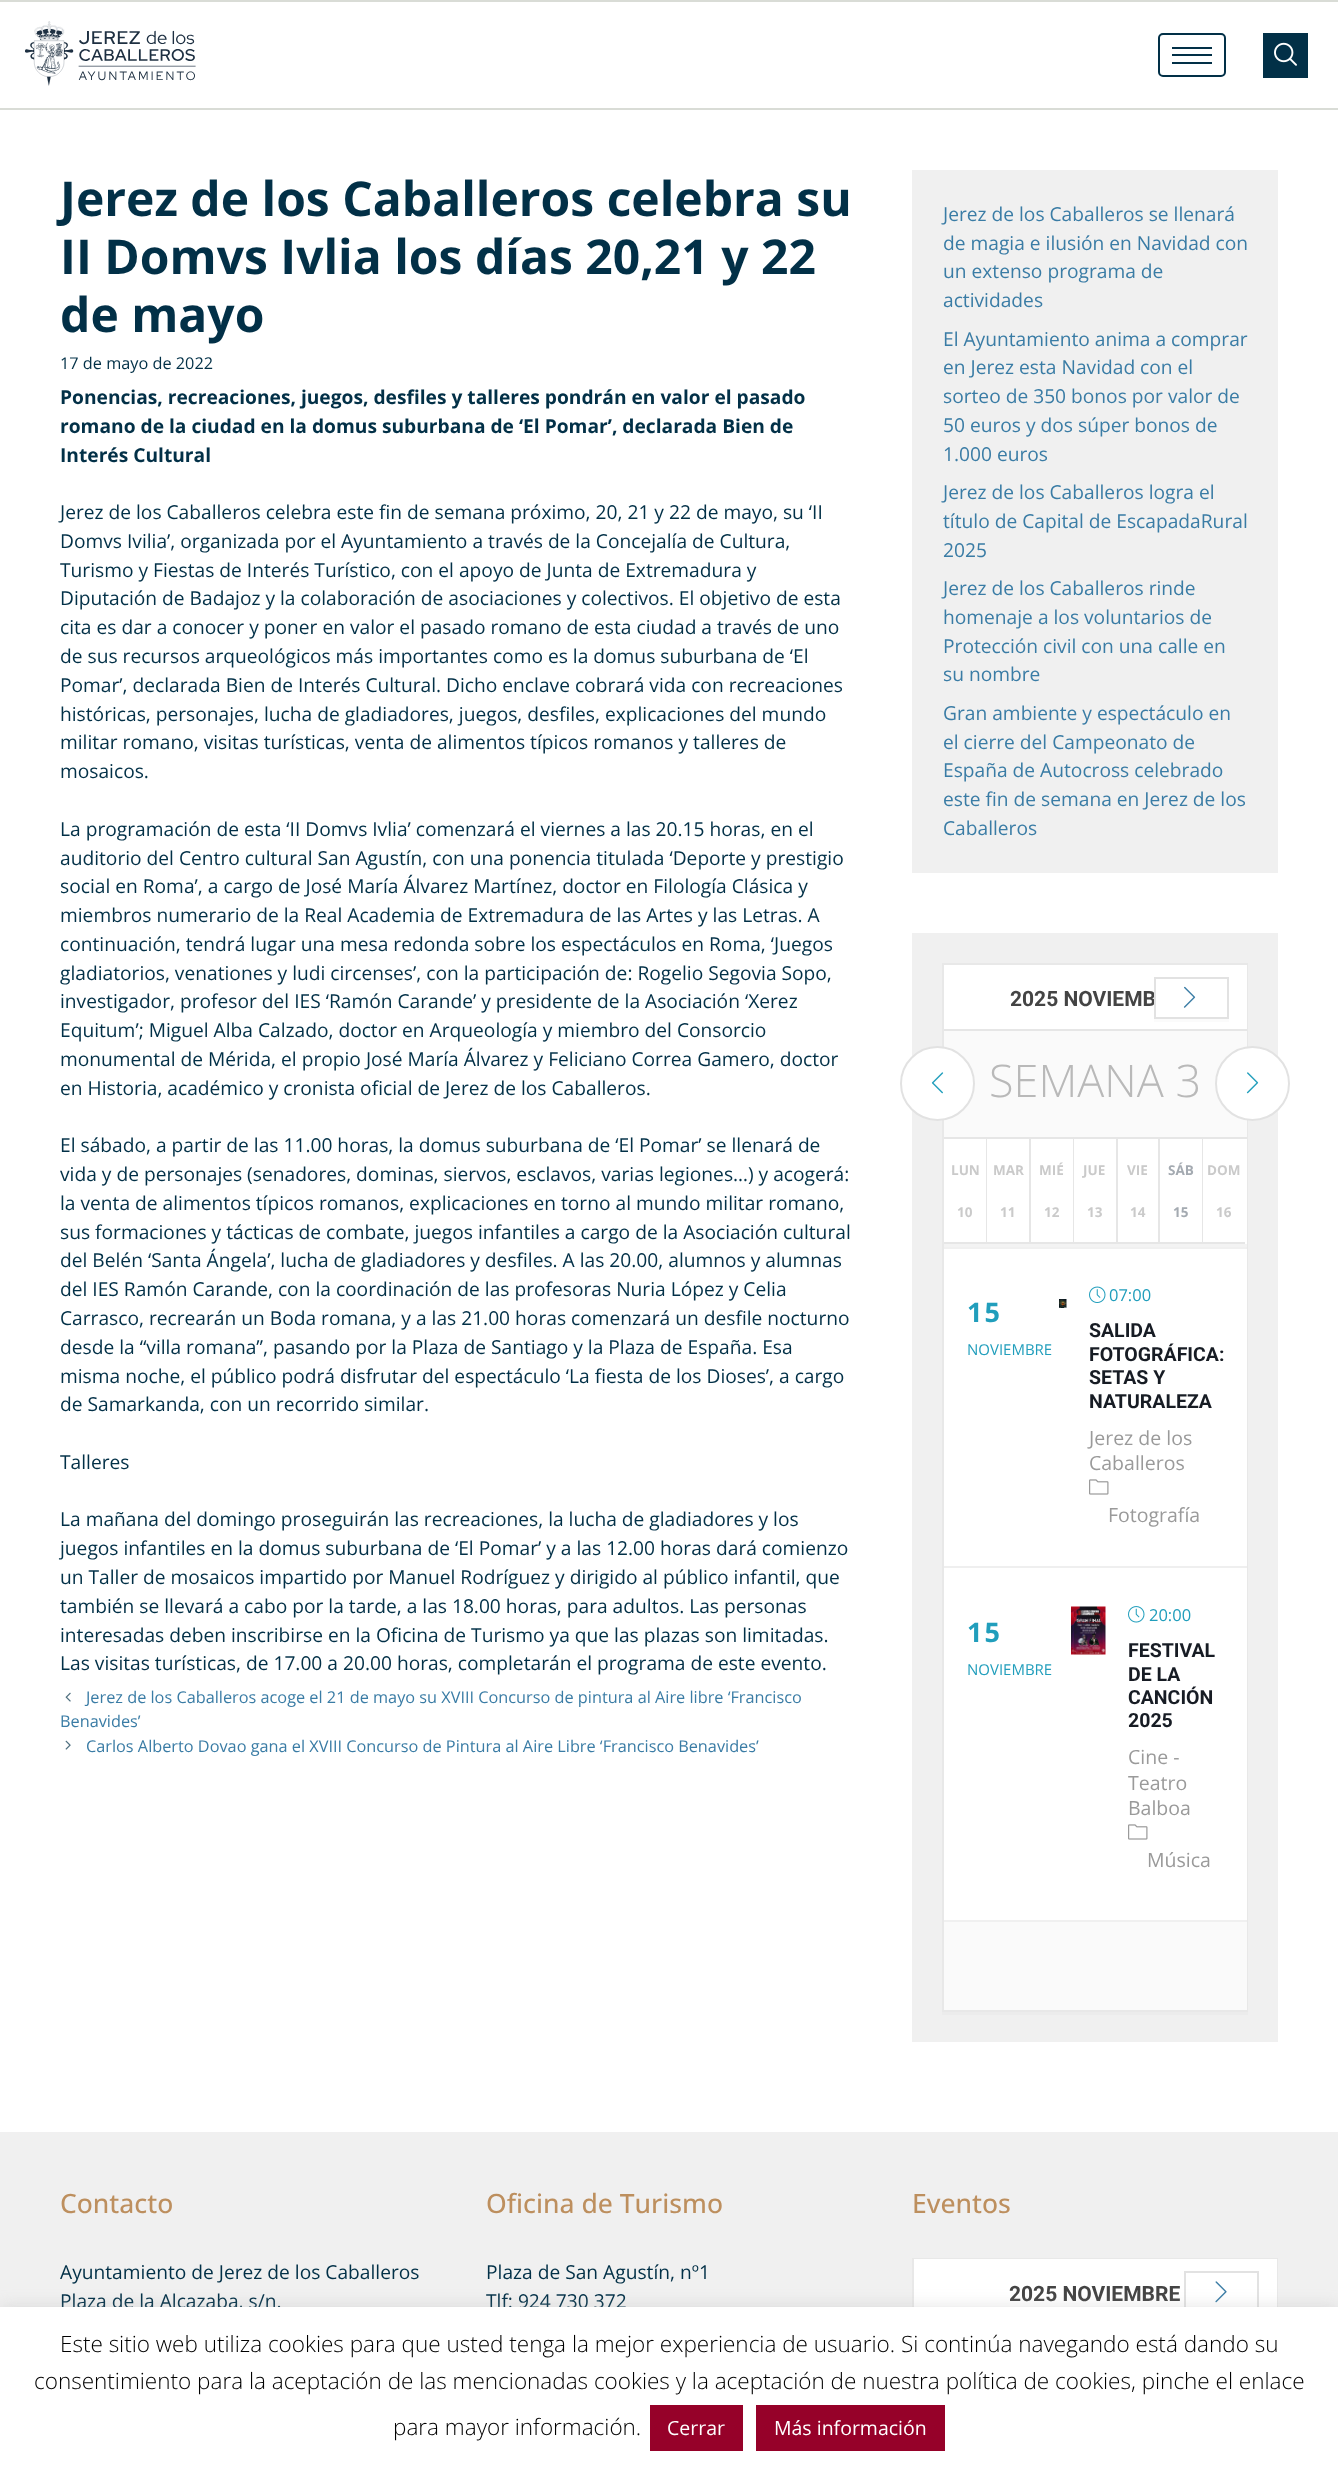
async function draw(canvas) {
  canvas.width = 1338
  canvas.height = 2469
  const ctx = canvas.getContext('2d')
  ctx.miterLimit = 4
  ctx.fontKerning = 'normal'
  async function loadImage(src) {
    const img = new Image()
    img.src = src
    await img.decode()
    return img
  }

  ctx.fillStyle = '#fff'
  ctx.fillRect(0, 0, 1338, 2469)
  ctx.fillStyle = '#d9dcd6'
  ctx.fillRect(0, 0, 1338, 2)
  ctx.fillRect(0, 108, 1338, 2)
  ctx.drawImage(await loadImage('image0.png'), 25, 21, 171, 65)
  ctx.beginPath()
  ctx.roundRect(1159, 34, 66, 42, 4)
  ctx.strokeStyle = '#023047'
  ctx.lineWidth = 2
  ctx.stroke()
  ctx.fillStyle = '#023047'
  ctx.fillRect(1172, 47, 40, 2)
  ctx.fillRect(1172, 54, 40, 2)
  ctx.fillRect(1172, 62, 40, 2)
  ctx.fillRect(1263, 33, 45, 45)
  ctx.drawImage(await loadImage('image1.png'), 1274, 42, 23, 24)
  ctx.font = 'bold 48px Open Sans'
  ctx.fillText('Jerez de los Caballeros celebra su', 60, 216)
  ctx.fillText('II Domvs Ivlia los días 20,21 y 22', 60, 274)
  ctx.fillText('de mayo', 60, 332)
  ctx.font = '16.3px Open Sans'
  ctx.fillText('17 de mayo de 2022', 60, 369)
  ctx.font = 'bold 19.2px Open Sans'
  ctx.fillText('Ponencias, recreaciones, juegos, desfiles y talleres pondrán en valor el pasado', 60, 404)
  ctx.fillText('romano de la ciudad en la domus suburbana de ‘El Pomar’, declarada Bien de', 60, 433)
  ctx.fillText('Interés Cultural', 60, 462)
  ctx.font = '19.2px Open Sans'
  ctx.fillText('Jerez de los Caballeros celebra este fin de semana próximo, 20, 21 y 22 de mayo, su ‘II', 60, 519)
  ctx.fillText('Domvs Ivilia’, organizada por el Ayuntamiento a través de la Concejalía de Cultura,', 60, 548)
  ctx.fillText('Turismo y Fiestas de Interés Turístico, con el apoyo de Junta de Extremadura y', 60, 577)
  ctx.fillText('Diputación de Badajoz y la colaboración de asociaciones y colectivos. El objetivo de esta', 60, 605)
  ctx.fillText('cita es dar a conocer y poner en valor el pasado romano de esta ciudad a través de uno', 60, 634)
  ctx.fillText('de sus recursos arqueológicos más importantes como es la domus suburbana de ‘El', 60, 663)
  ctx.fillText('Pomar’, declarada Bien de Interés Cultural. Dicho enclave cobrará vida con recreaciones', 60, 692)
  ctx.fillText('históricas, personajes, lucha de gladiadores, juegos, desfiles, explicaciones del mundo', 60, 721)
  ctx.fillText('militar romano, visitas turísticas, venta de alimentos típicos romanos y talleres de', 60, 749)
  ctx.fillText('mosaicos.', 60, 778)
  ctx.fillText('La programación de esta ‘II Domvs Ivlia’ comenzará el viernes a las 20.15 horas, en el', 60, 836)
  ctx.fillText('auditorio del Centro cultural San Agustín, con una ponencia titulada ‘Deporte y prestigio', 60, 865)
  ctx.fillText('social en Roma’, a cargo de José María Álvarez Martínez, doctor en Filología Clásica y', 60, 893)
  ctx.fillText('miembros numerario de la Real Academia de Extremadura de las Artes y las Letras. A', 60, 922)
  ctx.fillText('continuación, tendrá lugar una mesa redonda sobre los espectáculos en Roma, ‘Juegos', 60, 951)
  ctx.fillText('gladiatorios, venationes y ludi circenses’, con la participación de: Rogelio Segovia Sopo,', 60, 980)
  ctx.fillText('investigador, profesor del IES ‘Ramón Carande’ y presidente de la Asociación ‘Xerez', 60, 1008)
  ctx.fillText('Equitum’; Miguel Alba Calzado, doctor en Arqueología y miembro del Consorcio', 60, 1037)
  ctx.fillText('monumental de Mérida, el propio José María Álvarez y Feliciano Correa Gamero, doctor', 60, 1066)
  ctx.fillText('en Historia, académico y cronista oficial de Jerez de los Caballeros.', 60, 1095)
  ctx.fillText('El sábado, a partir de las 11.00 horas, la domus suburbana de ‘El Pomar’ se llenará de', 60, 1152)
  ctx.fillText('vida y de personajes (senadores, dominas, siervos, esclavos, varias legiones…) y acogerá:', 60, 1181)
  ctx.fillText('la venta de alimentos típicos romanos, explicaciones en torno al mundo militar romano,', 60, 1210)
  ctx.fillText('sus formaciones y tácticas de combate, juegos infantiles a cargo de la Asociación cultural', 60, 1239)
  ctx.fillText('del Belén ‘Santa Ángela’, lucha de gladiadores y desfiles. A las 20.00, alumnos y alumnas', 60, 1267)
  ctx.fillText('del IES Ramón Carande, con la coordinación de las profesoras Nuria López y Celia', 60, 1296)
  ctx.fillText('Carrasco, recrearán un Boda romana, y a las 21.00 horas comenzará un desfile nocturno', 60, 1325)
  ctx.fillText('desde la “villa romana”, pasando por la Plaza de Santiago y la Plaza de España. Esa', 60, 1354)
  ctx.fillText('misma noche, el público podrá disfrutar del espectáculo ‘La fiesta de los Dioses’, a cargo', 60, 1383)
  ctx.fillText('de Samarkanda, con un recorrido similar.', 60, 1411)
  ctx.fillText('Talleres', 60, 1469)
  ctx.fillText('La mañana del domingo proseguirán las recreaciones, la lucha de gladiadores y los', 60, 1526)
  ctx.fillText('juegos infantiles en la domus suburbana de ‘El Pomar’ y a las 12.00 horas dará comienzo', 60, 1555)
  ctx.fillText('un Taller de mosaicos impartido por Manuel Rodríguez y dirigido al público infantil, que', 60, 1584)
  ctx.fillText('también se llevará a cabo por la tarde, a las 18.00 horas, para adultos. Las personas', 60, 1613)
  ctx.fillText('interesadas deben inscribirse en la Oficina de Turismo ya que las plazas son limitadas.', 60, 1642)
  ctx.fillText('Las visitas turísticas, de 17.00 a 20.00 horas, completarán el programa de este evento.', 60, 1670)
  ctx.drawImage(await loadImage('image2.png'), 65, 1692, 6, 10)
  ctx.font = '16.3px Open Sans'
  ctx.fillStyle = '#3a7ca5'
  ctx.fillText('Jerez de los Caballeros acoge el 21 de mayo su XVIII Concurso de pintura al Aire libre ‘Francisco', 86, 1703)
  ctx.fillText('Benavides’', 60, 1727)
  ctx.drawImage(await loadImage('image3.png'), 65, 1740, 6, 10)
  ctx.fillText('Carlos Alberto Dovao gana el XVIII Concurso de Pintura al Aire Libre ‘Francisco Benavides’', 86, 1752)
  ctx.fillStyle = '#f0f0f0'
  ctx.fillRect(912, 170, 366, 703)
  ctx.font = '19.2px Open Sans'
  ctx.fillStyle = '#3a7ca5'
  ctx.fillText('Jerez de los Caballeros se llenará', 943, 221)
  ctx.fillText('de magia e ilusión en Navidad con', 943, 250)
  ctx.fillText('un extenso programa de', 943, 278)
  ctx.fillText('actividades', 943, 307)
  ctx.fillText('El Ayuntamiento anima a comprar', 943, 346)
  ctx.fillText('en Jerez esta Navidad con el', 943, 374)
  ctx.fillText('sorteo de 350 bonos por valor de', 943, 403)
  ctx.fillText('50 euros y dos súper bonos de', 943, 432)
  ctx.fillText('1.000 euros', 943, 461)
  ctx.fillText('Jerez de los Caballeros logra el', 943, 499)
  ctx.fillText('título de Capital de EscapadaRural', 943, 528)
  ctx.fillText('2025', 943, 557)
  ctx.fillText('Jerez de los Caballeros rinde', 943, 595)
  ctx.fillText('homenaje a los voluntarios de', 943, 624)
  ctx.fillText('Protección civil con una calle en', 943, 653)
  ctx.fillText('su nombre', 943, 681)
  ctx.fillText('Gran ambiente y espectáculo en', 943, 720)
  ctx.fillText('el cierre del Campeonato de', 943, 749)
  ctx.fillText('España de Autocross celebrado', 943, 777)
  ctx.fillText('este fin de semana en Jerez de los', 943, 806)
  ctx.fillText('Caballeros', 943, 835)
  ctx.fillStyle = '#f0f0f0'
  ctx.fillRect(912, 933, 366, 1109)
  ctx.fillStyle = '#ececec'
  ctx.fillRect(942, 2012, 306, 3)
  ctx.strokeStyle = '#e8e8e8'
  ctx.strokeRect(943, 964, 304, 1047)
  ctx.fillStyle = '#fff'
  ctx.fillRect(944, 965, 303, 64)
  ctx.fillStyle = '#e6e6e6'
  ctx.fillRect(944, 1029, 303, 2)
  ctx.font = 'bold 21px Roboto'
  ctx.fillStyle = '#444'
  ctx.fillText('2025 NOVIEMB', 1010, 1006)
  ctx.fillStyle = '#fbfbfb'
  ctx.beginPath()
  ctx.moveTo(1154, 1018)
  ctx.lineTo(1154, 1022)
  ctx.lineTo(1229, 1022)
  ctx.lineTo(1229, 980)
  ctx.lineTo(1228, 980)
  ctx.lineTo(1228, 1018)
  ctx.closePath()
  ctx.fill()
  ctx.strokeStyle = '#e2e2e2'
  ctx.strokeRect(1155, 978, 73, 40)
  ctx.drawImage(await loadImage('image4.png'), 1183, 986, 13, 22)
  ctx.fillStyle = '#fafafa'
  ctx.fillRect(944, 1031, 303, 106)
  ctx.fillStyle = '#fff'
  ctx.beginPath()
  ctx.arc(937.5, 1083.5, 36.5, 0, 2 * Math.PI)
  ctx.fill()
  ctx.stroke()
  ctx.drawImage(await loadImage('image5.png'), 931, 1072, 13, 22)
  ctx.font = '300 45px Open Sans'
  ctx.fillStyle = '#b9b9b9'
  ctx.fillText('SEMANA 3', 989, 1097)
  ctx.fillStyle = '#fff'
  ctx.beginPath()
  ctx.arc(1252.5, 1083.5, 36.5, 0, 2 * Math.PI)
  ctx.fill()
  ctx.stroke()
  ctx.drawImage(await loadImage('image6.png'), 1246, 1072, 13, 22)
  ctx.fillRect(944, 1139, 303, 105)
  ctx.fillStyle = '#e6e6e6'
  ctx.fillRect(944, 1137, 303, 2)
  ctx.fillStyle = '#f3f3f3'
  ctx.fillRect(944, 1244, 303, 3)
  ctx.fillStyle = '#e6e6e6'
  ctx.fillRect(986, 1139, 1, 105)
  ctx.fillRect(944, 1242, 43, 2)
  ctx.font = 'bold 13.5px Open Sans'
  ctx.fillStyle = '#cacaca'
  ctx.fillText('LUN', 951, 1175)
  ctx.fillText('10', 957, 1217)
  ctx.fillStyle = '#e6e6e6'
  ctx.fillRect(1029, 1139, 2, 105)
  ctx.fillRect(987, 1242, 44, 2)
  ctx.fillStyle = '#cacaca'
  ctx.fillText('MAR', 993, 1175)
  ctx.fillText('11', 1000, 1217)
  ctx.fillStyle = '#e6e6e6'
  ctx.fillRect(1073, 1139, 1, 105)
  ctx.fillRect(1031, 1242, 43, 2)
  ctx.fillStyle = '#cacaca'
  ctx.fillText('MIÉ', 1039, 1175)
  ctx.fillText('12', 1044, 1217)
  ctx.fillStyle = '#e6e6e6'
  ctx.fillRect(1116, 1139, 2, 105)
  ctx.fillRect(1074, 1242, 44, 2)
  ctx.fillStyle = '#cacaca'
  ctx.fillText('JUE', 1083, 1175)
  ctx.fillText('13', 1087, 1217)
  ctx.fillStyle = '#e6e6e6'
  ctx.fillRect(1158, 1139, 2, 105)
  ctx.fillRect(1118, 1242, 42, 2)
  ctx.fillStyle = '#cacaca'
  ctx.fillText('VIE', 1127, 1175)
  ctx.fillText('14', 1130, 1217)
  ctx.fillStyle = '#e6e6e6'
  ctx.fillRect(1202, 1139, 1, 105)
  ctx.fillRect(1160, 1242, 85, 2)
  ctx.fillStyle = '#a4aab1'
  ctx.fillText('SÁB', 1168, 1175)
  ctx.fillText('15', 1173, 1217)
  ctx.fillStyle = '#cacaca'
  ctx.fillText('DOM', 1207, 1175)
  ctx.fillText('16', 1216, 1217)
  ctx.fillStyle = '#fff'
  ctx.fillRect(944, 1249, 303, 671)
  ctx.fillStyle = '#efefef'
  ctx.fillRect(1246, 1247, 1, 2)
  ctx.letterSpacing = '2px'
  ctx.font = 'bold 27px Open Sans'
  ctx.fillStyle = '#219ebc'
  ctx.fillText('15', 967, 1322)
  ctx.letterSpacing = '0px'
  ctx.font = '15px Open Sans'
  ctx.fillText('NOVIEMBRE', 967, 1355)
  ctx.drawImage(await loadImage('image7.png'), 1059, 1299, 8, 9)
  ctx.drawImage(await loadImage('image8.png'), 1089, 1286, 17, 17)
  ctx.font = '16.5px Open Sans'
  ctx.fillText('07:00', 1109, 1301)
  ctx.font = 'bold 19.5px Roboto'
  ctx.fillStyle = '#171c24'
  ctx.fillText('SALIDA', 1089, 1337)
  ctx.fillText('FOTOGRÁFICA:', 1089, 1361)
  ctx.fillText('SETAS Y', 1089, 1384)
  ctx.fillText('NATURALEZA', 1089, 1408)
  ctx.font = '19.5px Open Sans'
  ctx.fillStyle = '#9a9a9a'
  ctx.fillText('Jerez de los', 1089, 1445)
  ctx.fillText('Caballeros', 1089, 1470)
  ctx.drawImage(await loadImage('image9.png'), 1089, 1479, 20, 16)
  ctx.fillText('Fotografía', 1108, 1522)
  ctx.fillStyle = '#efefef'
  ctx.fillRect(944, 1566, 303, 2)
  ctx.letterSpacing = '2px'
  ctx.font = 'bold 27px Open Sans'
  ctx.fillStyle = '#219ebc'
  ctx.fillText('15', 967, 1642)
  ctx.letterSpacing = '0px'
  ctx.font = '15px Open Sans'
  ctx.fillText('NOVIEMBRE', 967, 1675)
  ctx.drawImage(await loadImage('image10.png'), 1071, 1606, 35, 49)
  ctx.drawImage(await loadImage('image11.png'), 1128, 1606, 17, 17)
  ctx.font = '16.5px Open Sans'
  ctx.fillText('20:00', 1149, 1621)
  ctx.font = 'bold 19.5px Roboto'
  ctx.fillStyle = '#171c24'
  ctx.fillText('FESTIVAL', 1128, 1657)
  ctx.fillText('DE LA', 1128, 1681)
  ctx.fillText('CANCIÓN', 1128, 1704)
  ctx.fillText('2025', 1128, 1727)
  ctx.font = '19.5px Open Sans'
  ctx.fillStyle = '#9a9a9a'
  ctx.fillText('Cine -', 1128, 1764)
  ctx.fillText('Teatro', 1128, 1790)
  ctx.fillText('Balboa', 1128, 1815)
  ctx.drawImage(await loadImage('image9.png'), 1128, 1824, 20, 16)
  ctx.fillText('Música', 1147, 1867)
  ctx.fillStyle = '#fafafa'
  ctx.fillRect(944, 1922, 303, 88)
  ctx.fillStyle = '#efefef'
  ctx.fillRect(1246, 1920, 1, 2)
  ctx.fillStyle = '#f0f0f0'
  ctx.fillRect(0, 2132, 1338, 175)
  ctx.font = '500 26.5px Open Sans'
  ctx.fillStyle = '#bd8f5e'
  ctx.fillText('Contacto', 60, 2213)
  ctx.font = '19.2px Open Sans'
  ctx.fillStyle = '#023047'
  ctx.fillText('Ayuntamiento de Jerez de los Caballeros', 60, 2279)
  ctx.fillText('Plaza de la Alcazaba, s/n.', 60, 2308)
  ctx.font = '500 26.5px Open Sans'
  ctx.fillStyle = '#bd8f5e'
  ctx.fillText('Oficina de Turismo', 486, 2213)
  ctx.font = '19.2px Open Sans'
  ctx.fillStyle = '#023047'
  ctx.fillText('Plaza de San Agustín, nº1', 486, 2279)
  ctx.fillText('Tlf: 924 730 372', 486, 2308)
  ctx.font = '500 26.5px Open Sans'
  ctx.fillStyle = '#bd8f5e'
  ctx.fillText('Eventos', 912, 2213)
  ctx.strokeStyle = '#e8e8e8'
  ctx.strokeRect(913, 2259, 364, 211)
  ctx.fillStyle = '#fff'
  ctx.fillRect(914, 2259, 363, 48)
  ctx.font = 'bold 21px Roboto'
  ctx.fillStyle = '#444'
  ctx.fillText('2025 NOVIEMBRE', 1009, 2301)
  ctx.strokeStyle = '#e2e2e2'
  ctx.strokeRect(1185, 2272, 73, 40)
  ctx.drawImage(await loadImage('image12.png'), 1215, 2281, 12, 22)
  ctx.fillStyle = '#acabab4d'
  ctx.filter = 'blur(7.5px)'
  ctx.beginPath()
  ctx.rect(0, 2306, 1338, 162)
  ctx.fill()
  ctx.filter = 'none'
  ctx.fillStyle = '#fff'
  ctx.fillRect(0, 2307, 1338, 162)
  ctx.font = '300 22.5px Open Sans'
  ctx.fillStyle = '#000'
  ctx.fillText('Este sitio web utiliza cookies para que usted tenga la mejor experiencia de usuario. Si continúa navegando está dando su', 60, 2352)
  ctx.fillText('consentimiento para la aceptación de las mencionadas cookies y la aceptación de nuestra política de cookies, pinche el enlace', 34, 2389)
  ctx.fillText('para mayor información.', 393, 2435)
  ctx.fillStyle = '#960129'
  ctx.fillRect(650, 2405, 93, 46)
  ctx.font = '19.5px Open Sans'
  ctx.fillStyle = '#fff'
  ctx.fillText('Cerrar', 667, 2435)
  ctx.fillStyle = '#960129'
  ctx.fillRect(756, 2405, 189, 46)
  ctx.fillStyle = '#fff'
  ctx.fillText('Más información', 774, 2435)
}

draw(document.querySelector('canvas'))
